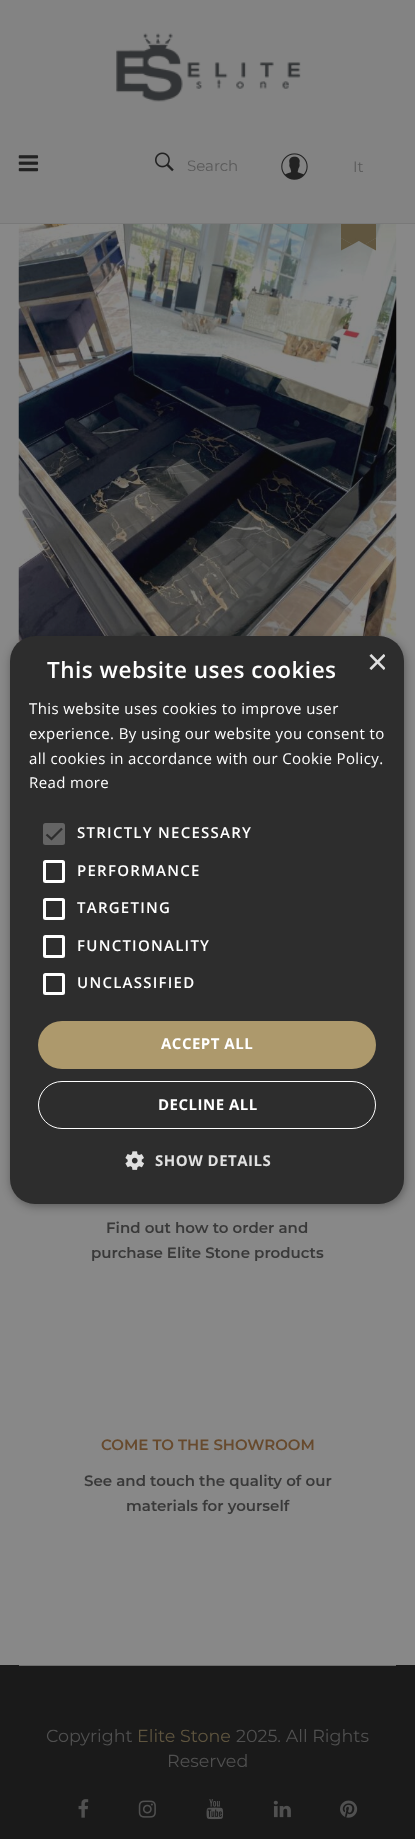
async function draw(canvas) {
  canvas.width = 415
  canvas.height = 1839
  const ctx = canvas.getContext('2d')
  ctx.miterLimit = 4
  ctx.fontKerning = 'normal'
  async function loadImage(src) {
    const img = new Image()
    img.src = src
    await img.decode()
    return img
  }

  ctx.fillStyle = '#888'
  ctx.fillRect(0, 0, 415, 1839)
  ctx.fillStyle = '#838383'
  ctx.fillRect(0, 0, 415, 223)
  ctx.fillStyle = '#797979'
  ctx.fillRect(0, 223, 415, 1)
  ctx.drawImage(await loadImage('image0.png'), 116, 33, 185, 69)
  ctx.drawImage(await loadImage('image1.png'), 18, 155, 21, 17)
  ctx.drawImage(await loadImage('image2.png'), 155, 152, 19, 20)
  ctx.font = '15px Montserrat'
  ctx.fillStyle = '#5a5a5a'
  ctx.fillText('Search', 187, 171)
  ctx.drawImage(await loadImage('image3.png'), 281, 153, 27, 27)
  ctx.fillText('It', 353, 172)
  ctx.drawImage(await loadImage('image4.png'), 18, 224, 379, 420)
  ctx.fillStyle = '#5f553f'
  ctx.fillRect(341, 224, 35, 14)
  ctx.beginPath()
  ctx.moveTo(341, 250.5)
  ctx.lineTo(341, 238)
  ctx.lineTo(352.5, 244.5)
  ctx.closePath()
  ctx.fill()
  ctx.beginPath()
  ctx.moveTo(341, 238)
  ctx.lineTo(364, 238)
  ctx.lineTo(352.5, 244.5)
  ctx.closePath()
  ctx.moveTo(376, 238)
  ctx.lineTo(376, 250.5)
  ctx.lineTo(365, 244.5)
  ctx.closePath()
  ctx.fill()
  ctx.beginPath()
  ctx.moveTo(354, 238)
  ctx.lineTo(376, 238)
  ctx.lineTo(365, 244.5)
  ctx.closePath()
  ctx.fill()
  ctx.font = '600 15px Montserrat'
  ctx.fillStyle = '#393939'
  ctx.fillText('Find out how to order and', 106, 1233)
  ctx.fillText('purchase Elite Stone products', 91, 1258)
  ctx.fillStyle = '#674a2d'
  ctx.fillText('COME TO THE SHOWROOM', 101, 1450)
  ctx.fillStyle = '#393939'
  ctx.fillText('See and touch the quality of our', 84, 1486)
  ctx.fillText('materials for yourself', 126, 1511)
  ctx.fillStyle = '#1a1a1a'
  ctx.fillRect(0, 1665, 415, 174)
  ctx.fillStyle = '#6d6d6d'
  ctx.fillRect(19, 1665, 377, 1)
  ctx.font = '17.5px Montserrat'
  ctx.fillStyle = '#505050'
  ctx.fillText('Copyright', 46, 1742)
  ctx.fillStyle = '#5f553f'
  ctx.fillText('Elite Stone', 137, 1742)
  ctx.fillStyle = '#505050'
  ctx.fillText('2025. All Rights', 236, 1742)
  ctx.fillText('Reserved', 167, 1767)
  ctx.drawImage(await loadImage('image5.png'), 78, 1799, 11, 19)
  ctx.drawImage(await loadImage('image6.png'), 138, 1800, 18, 18)
  ctx.drawImage(await loadImage('image7.png'), 206, 1799, 18, 21)
  ctx.drawImage(await loadImage('image8.png'), 273, 1800, 18, 18)
  ctx.drawImage(await loadImage('image9.png'), 340, 1800, 18, 18)
  ctx.fillStyle = '#00000059'
  ctx.filter = 'blur(5px)'
  ctx.beginPath()
  ctx.roundRect(11, 639, 394, 567, 25)
  ctx.fill()
  ctx.filter = 'none'
  ctx.fillStyle = '#2d2d2d'
  ctx.beginPath()
  ctx.roundRect(10, 636, 394, 568, 25)
  ctx.fill()
  ctx.letterSpacing = '0.5px'
  ctx.font = '600 22.5px Open Sans'
  ctx.fillStyle = '#fff'
  ctx.fillText('This website uses cookies', 47, 678)
  ctx.save()
  ctx.beginPath()
  ctx.rect(366, 654, 19, 19)
  ctx.clip()
  ctx.letterSpacing = '0px'
  ctx.font = '36px Liberation Sans'
  ctx.fillStyle = '#e0e0e0'
  ctx.fillText('×', 367, 674)
  ctx.restore()
  ctx.letterSpacing = '0.4px'
  ctx.font = '15px Open Sans'
  ctx.fillText('This website uses cookies to improve user', 29, 714)
  ctx.fillText('experience. By using our website you consent to', 29, 739)
  ctx.fillText('all cookies in accordance with our Cookie Policy.', 29, 764)
  ctx.fillText('Read more', 29, 788)
  ctx.fillStyle = '#646464'
  ctx.beginPath()
  ctx.roundRect(43, 823, 22, 22, 2.5)
  ctx.fill()
  ctx.beginPath()
  ctx.moveTo(46.5, 834.5)
  ctx.lineTo(51.5, 839)
  ctx.lineTo(62, 828.5)
  ctx.strokeStyle = '#2d2d2d'
  ctx.lineWidth = 2.3
  ctx.stroke()
  ctx.letterSpacing = '1.25px'
  ctx.font = '600 15px Open Sans'
  ctx.fillStyle = '#fff'
  ctx.fillText('STRICTLY NECESSARY', 77, 838)
  ctx.beginPath()
  ctx.roundRect(44.5, 861.5, 19, 20, 1)
  ctx.strokeStyle = '#fff'
  ctx.lineWidth = 3
  ctx.stroke()
  ctx.fillText('PERFORMANCE', 77, 876)
  ctx.beginPath()
  ctx.roundRect(44.5, 899.5, 19, 19, 1)
  ctx.stroke()
  ctx.fillText('TARGETING', 77, 913)
  ctx.beginPath()
  ctx.roundRect(44.5, 936.5, 19, 20, 1)
  ctx.stroke()
  ctx.fillText('FUNCTIONALITY', 77, 951)
  ctx.beginPath()
  ctx.roundRect(44.5, 974.5, 19, 19, 1)
  ctx.stroke()
  ctx.fillText('UNCLASSIFIED', 77, 988)
  ctx.fillStyle = '#ad996c'
  ctx.beginPath()
  ctx.roundRect(38, 1021, 338, 48, 24)
  ctx.fill()
  ctx.letterSpacing = '0.5px'
  ctx.font = 'bold 15px Open Sans'
  ctx.fillStyle = '#fff'
  ctx.fillText('ACCEPT ALL', 161, 1049)
  ctx.beginPath()
  ctx.roundRect(38.5, 1081.5, 337, 47, 23.5)
  ctx.lineWidth = 1
  ctx.stroke()
  ctx.fillText('DECLINE ALL', 158, 1110)
  ctx.drawImage(await loadImage('image10.png'), 125, 1151, 19, 19)
  ctx.fillStyle = '#e0e0e0'
  ctx.fillText('SHOW DETAILS', 155, 1166)
}

draw(document.querySelector('canvas'))
